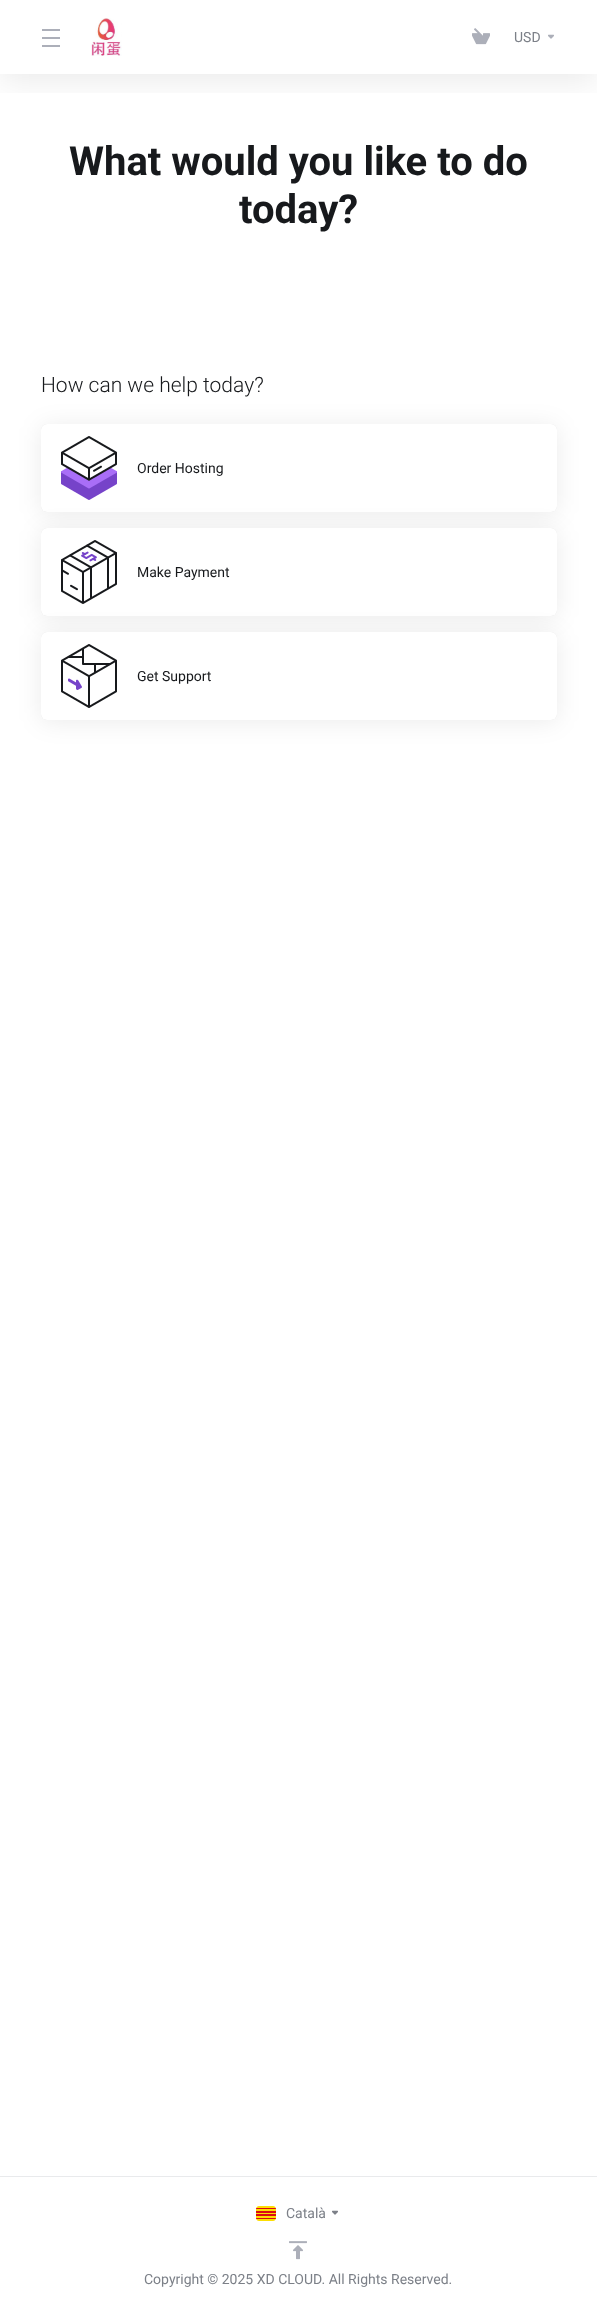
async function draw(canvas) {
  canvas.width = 597
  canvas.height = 2307
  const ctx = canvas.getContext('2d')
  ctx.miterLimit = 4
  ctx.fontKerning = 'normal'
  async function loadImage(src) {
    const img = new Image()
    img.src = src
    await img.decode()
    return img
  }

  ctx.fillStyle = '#fff'
  ctx.fillRect(0, 0, 597, 2307)
  ctx.save()
  ctx.beginPath()
  ctx.rect(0, 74, 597, 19)
  ctx.clip()
  ctx.fillStyle = '#00000014'
  ctx.filter = 'blur(16px)'
  ctx.beginPath()
  ctx.rect(0, 8, 597, 74)
  ctx.fill()
  ctx.filter = 'none'
  ctx.restore()
  ctx.fillStyle = '#acafb9'
  ctx.fillRect(42, 29, 18, 2)
  ctx.fillRect(42, 37, 18, 2)
  ctx.fillRect(42, 45, 18, 2)
  ctx.drawImage(await loadImage('image0.png'), 91, 18, 31, 38)
  ctx.drawImage(await loadImage('image1.png'), 472, 28, 18, 17)
  ctx.font = '14px Roboto'
  ctx.fillStyle = '#7c8088'
  ctx.fillText('USD', 514, 42)
  ctx.drawImage(await loadImage('image2.png'), 548, 34, 6, 5)
  ctx.font = 'bold 40px Roboto'
  ctx.fillStyle = '#17191c'
  ctx.fillText('What would you like to do', 69, 175)
  ctx.fillText('today?', 239, 223)
  ctx.font = '300 21px Roboto'
  ctx.fillText('How can we help today?', 41, 392)
  ctx.fillStyle = '#00000014'
  ctx.filter = 'blur(12px)'
  ctx.beginPath()
  ctx.roundRect(41, 426, 516, 88, 6)
  ctx.fill()
  ctx.filter = 'none'
  ctx.fillStyle = '#0000001a'
  ctx.filter = 'blur(0.5px)'
  ctx.beginPath()
  ctx.roundRect(41, 424, 516, 88, 6)
  ctx.fill()
  ctx.filter = 'none'
  ctx.fillStyle = '#fff'
  ctx.beginPath()
  ctx.roundRect(41, 424, 516, 88, 6)
  ctx.fill()
  ctx.drawImage(await loadImage('image3.png'), 61, 436, 56, 64)
  ctx.font = '14px Roboto'
  ctx.fillStyle = '#17191c'
  ctx.fillText('Order Hosting', 137, 473)
  ctx.fillStyle = '#00000014'
  ctx.filter = 'blur(12px)'
  ctx.beginPath()
  ctx.roundRect(41, 530, 516, 88, 6)
  ctx.fill()
  ctx.filter = 'none'
  ctx.fillStyle = '#0000001a'
  ctx.filter = 'blur(0.5px)'
  ctx.beginPath()
  ctx.roundRect(41, 528, 516, 88, 6)
  ctx.fill()
  ctx.filter = 'none'
  ctx.fillStyle = '#fff'
  ctx.beginPath()
  ctx.roundRect(41, 528, 516, 88, 6)
  ctx.fill()
  ctx.drawImage(await loadImage('image4.png'), 61, 540, 56, 64)
  ctx.fillStyle = '#17191c'
  ctx.fillText('Make Payment', 137, 577)
  ctx.fillStyle = '#00000014'
  ctx.filter = 'blur(12px)'
  ctx.beginPath()
  ctx.roundRect(41, 634, 516, 88, 6)
  ctx.fill()
  ctx.filter = 'none'
  ctx.fillStyle = '#0000001a'
  ctx.filter = 'blur(0.5px)'
  ctx.beginPath()
  ctx.roundRect(41, 632, 516, 88, 6)
  ctx.fill()
  ctx.filter = 'none'
  ctx.fillStyle = '#fff'
  ctx.beginPath()
  ctx.roundRect(41, 632, 516, 88, 6)
  ctx.fill()
  ctx.drawImage(await loadImage('image5.png'), 61, 644, 56, 64)
  ctx.fillStyle = '#17191c'
  ctx.fillText('Get Support', 137, 681)
  ctx.fillStyle = '#e9eaec'
  ctx.fillRect(0, 2176, 597, 1)
  ctx.drawImage(await loadImage('image6.png'), 256, 2206, 20, 15)
  ctx.fillStyle = '#7c8088'
  ctx.fillText('Català', 286, 2218)
  ctx.drawImage(await loadImage('image7.png'), 332, 2210, 6, 5)
  ctx.drawImage(await loadImage('image8.png'), 289, 2241, 18, 19)
  ctx.fillText('Copyright © 2025 XD CLOUD. All Rights Reserved.', 144, 2284)
}

draw(document.querySelector('canvas'))
